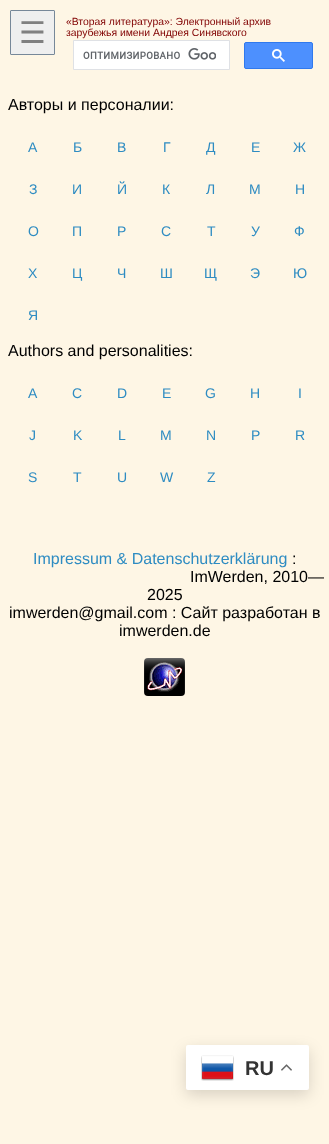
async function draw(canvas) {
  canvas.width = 329
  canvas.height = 1144
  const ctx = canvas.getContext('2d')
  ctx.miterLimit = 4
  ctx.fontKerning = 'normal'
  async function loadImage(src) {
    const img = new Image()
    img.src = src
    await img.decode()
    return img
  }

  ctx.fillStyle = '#fef6e5'
  ctx.fillRect(0, 0, 329, 1144)
  ctx.fillStyle = '#efefef'
  ctx.beginPath()
  ctx.roundRect(10.5, 10.5, 44, 44, 0.5)
  ctx.fill()
  ctx.strokeStyle = '#789'
  ctx.stroke()
  ctx.font = '30px DejaVu Sans'
  ctx.fillStyle = '#808080'
  ctx.fillText('☰', 19, 43)
  ctx.font = '10.4px Liberation Sans'
  ctx.fillStyle = '#800000'
  ctx.fillText('«Вторая литература»: Электронный архив', 66, 25)
  ctx.fillText('зарубежья имени Андрея Синявского', 66, 36)
  ctx.fillStyle = '#fff'
  ctx.beginPath()
  ctx.rect(73.5, 40.5, 156, 29)
  ctx.fill()
  ctx.strokeStyle = '#dfe1e5'
  ctx.stroke()
  ctx.drawImage(await loadImage('image0.png'), 83, 48, 133, 12)
  ctx.fillStyle = '#4d90fe'
  ctx.beginPath()
  ctx.roundRect(244.5, 42.5, 68, 26, 1.5)
  ctx.fill()
  ctx.strokeStyle = '#3079ed'
  ctx.stroke()
  ctx.drawImage(await loadImage('image1.png'), 272, 49, 13, 13)
  ctx.font = '16px Liberation Sans'
  ctx.fillStyle = '#000'
  ctx.fillText('Авторы и персоналии:', 8, 110)
  ctx.font = '14px Liberation Sans'
  ctx.fillStyle = '#2e8cc2'
  ctx.fillText('А', 28, 152)
  ctx.fillText('Б', 73, 152)
  ctx.fillText('В', 117, 152)
  ctx.fillText('Г', 163, 152)
  ctx.fillText('Д', 206, 152)
  ctx.fillText('Е', 251, 152)
  ctx.fillText('Ж', 293, 152)
  ctx.fillText('З', 29, 194)
  ctx.fillText('И', 72, 194)
  ctx.fillText('Й', 117, 194)
  ctx.fillText('К', 162, 194)
  ctx.fillText('Л', 206, 194)
  ctx.fillText('М', 249, 194)
  ctx.fillText('Н', 295, 194)
  ctx.fillText('О', 28, 236)
  ctx.fillText('П', 72, 236)
  ctx.fillText('Р', 117, 236)
  ctx.fillText('С', 161, 236)
  ctx.fillText('Т', 207, 236)
  ctx.fillText('У', 251, 236)
  ctx.fillText('Ф', 294, 236)
  ctx.fillText('Х', 28, 278)
  ctx.fillText('Ц', 72, 278)
  ctx.fillText('Ч', 117, 278)
  ctx.fillText('Ш', 160, 278)
  ctx.fillText('Щ', 204, 278)
  ctx.fillText('Э', 250, 278)
  ctx.fillText('Ю', 293, 278)
  ctx.fillText('Я', 28, 320)
  ctx.font = '16px Liberation Sans'
  ctx.fillStyle = '#000'
  ctx.fillText('Authors and personalities:', 8, 356)
  ctx.font = '14px Liberation Sans'
  ctx.fillStyle = '#2e8cc2'
  ctx.fillText('A', 28, 398)
  ctx.fillText('C', 72, 398)
  ctx.fillText('D', 117, 398)
  ctx.fillText('E', 162, 398)
  ctx.fillText('G', 205, 398)
  ctx.fillText('H', 250, 398)
  ctx.fillText('I', 298, 398)
  ctx.fillText('J', 29, 440)
  ctx.fillText('K', 73, 440)
  ctx.fillText('L', 118, 440)
  ctx.fillText('M', 160, 440)
  ctx.fillText('N', 206, 440)
  ctx.fillText('P', 251, 440)
  ctx.fillText('R', 295, 440)
  ctx.fillText('S', 28, 482)
  ctx.fillText('T', 73, 482)
  ctx.fillText('U', 117, 482)
  ctx.fillText('W', 160, 482)
  ctx.fillText('Z', 207, 482)
  ctx.font = '16px Liberation Sans'
  ctx.fillText('Impressum & Datenschutzerklärung', 33, 564)
  ctx.fillStyle = '#000'
  ctx.fillText(':', 292, 564)
  ctx.fillText('ImWerden, 2010—', 190, 582)
  ctx.fillText('2025', 147, 600)
  ctx.fillText('imwerden@gmail.com : Сайт разработан в', 9, 618)
  ctx.fillText('imwerden.de', 119, 636)
  ctx.drawImage(await loadImage('image2.png'), 144, 658, 41, 38)
  ctx.fillStyle = '#00000026'
  ctx.filter = 'blur(7.5px)'
  ctx.beginPath()
  ctx.roundRect(186, 1050, 123, 45, 2)
  ctx.fill()
  ctx.filter = 'none'
  ctx.fillStyle = '#fff'
  ctx.beginPath()
  ctx.roundRect(186, 1045, 123, 45, 2)
  ctx.fill()
  ctx.drawImage(await loadImage('image3.png'), 201, 1055, 33, 26)
  ctx.font = 'bold 20px Liberation Sans'
  ctx.fillStyle = '#333'
  ctx.fillText('RU', 245, 1075)
  ctx.drawImage(await loadImage('image4.png'), 281, 1064, 11, 7)
}

draw(document.querySelector('canvas'))
